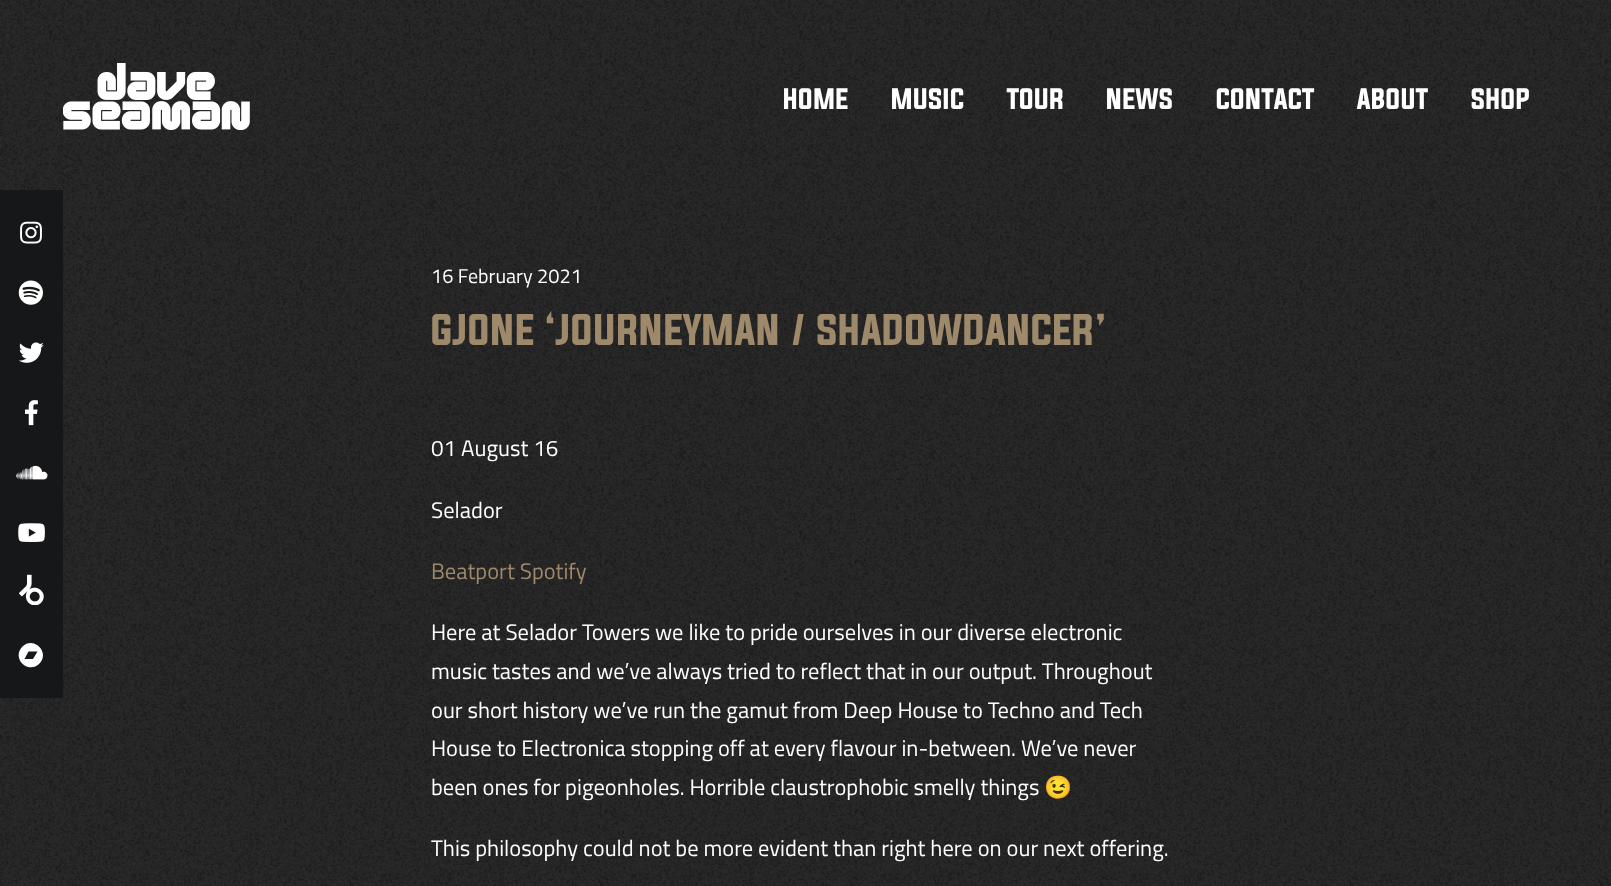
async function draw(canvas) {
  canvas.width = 1611
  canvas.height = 886
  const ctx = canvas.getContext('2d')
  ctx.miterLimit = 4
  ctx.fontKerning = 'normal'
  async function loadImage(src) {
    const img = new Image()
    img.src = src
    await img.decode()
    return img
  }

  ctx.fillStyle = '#fff'
  ctx.fillRect(0, 0, 1611, 886)
  ctx.drawImage(await loadImage('image0.png'), 0, 0, 1611, 886)
  ctx.drawImage(await loadImage('image1.png'), 63, 63, 187, 67)
  ctx.font = '25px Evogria'
  ctx.fillText('HOME', 783, 109)
  ctx.fillText('MUSIC', 891, 109)
  ctx.fillText('TOUR', 1007, 109)
  ctx.fillText('NEWS', 1106, 109)
  ctx.fillText('CONTACT', 1216, 109)
  ctx.fillText('ABOUT', 1357, 109)
  ctx.fillText('SHOP', 1471, 109)
  ctx.fillStyle = '#151718'
  ctx.fillRect(0, 190, 63, 508)
  ctx.drawImage(await loadImage('image2.png'), 20, 221, 22, 23)
  ctx.drawImage(await loadImage('image3.png'), 18, 280, 25, 25)
  ctx.drawImage(await loadImage('image4.png'), 19, 342, 25, 21)
  ctx.drawImage(await loadImage('image5.png'), 25, 400, 13, 26)
  ctx.drawImage(await loadImage('image6.png'), 16, 465, 32, 15)
  ctx.drawImage(await loadImage('image7.png'), 18, 523, 27, 19)
  ctx.drawImage(await loadImage('image8.png'), 19, 574, 25, 31)
  ctx.fillStyle = '#fff'
  ctx.beginPath()
  ctx.moveTo(22.5, 646.5)
  ctx.bezierCurveTo(33.5, 635.5, 50.5, 652.5, 39.5, 663.5)
  ctx.bezierCurveTo(28, 675, 11, 658, 22.5, 646.5)
  ctx.closePath()
  ctx.moveTo(33, 659)
  ctx.lineTo(37.5, 651.5)
  ctx.lineTo(28.5, 651.5)
  ctx.lineTo(24.5, 659)
  ctx.closePath()
  ctx.fill()
  ctx.font = '20px Titillium Web'
  ctx.fillText('16 February 2021', 431, 283)
  ctx.font = '37.5px Evogria'
  ctx.fillStyle = '#9f896b'
  ctx.fillText('GJONE ‘JOURNEYMAN / SHADOWDANCER’', 431, 345)
  ctx.font = '22.5px Titillium Web'
  ctx.fillStyle = '#fff'
  ctx.fillText('01 August 16', 431, 456)
  ctx.fillText('Selador', 431, 518)
  ctx.fillStyle = '#9f896b'
  ctx.fillText('Beatport Spotify', 431, 579)
  ctx.fillStyle = '#fff'
  ctx.fillText('Here at Selador Towers we like to pride ourselves in our diverse electronic', 431, 640)
  ctx.fillText('music tastes and we’ve always tried to reflect that in our output. Throughout', 431, 679)
  ctx.fillText('our short history we’ve run the gamut from Deep House to Techno and Tech', 431, 718)
  ctx.fillText('House to Electronica stopping off at every flavour in-between. We’ve never', 431, 756)
  ctx.fillText('been ones for pigeonholes. Horrible claustrophobic smelly things', 431, 795)
  ctx.font = '22.5px Noto Color Emoji'
  ctx.fillText('😉', 1044, 795)
  ctx.font = '22.5px Titillium Web'
  ctx.fillText('This philosophy could not be more evident than right here on our next offering.', 431, 856)
}

draw(document.querySelector('canvas'))
